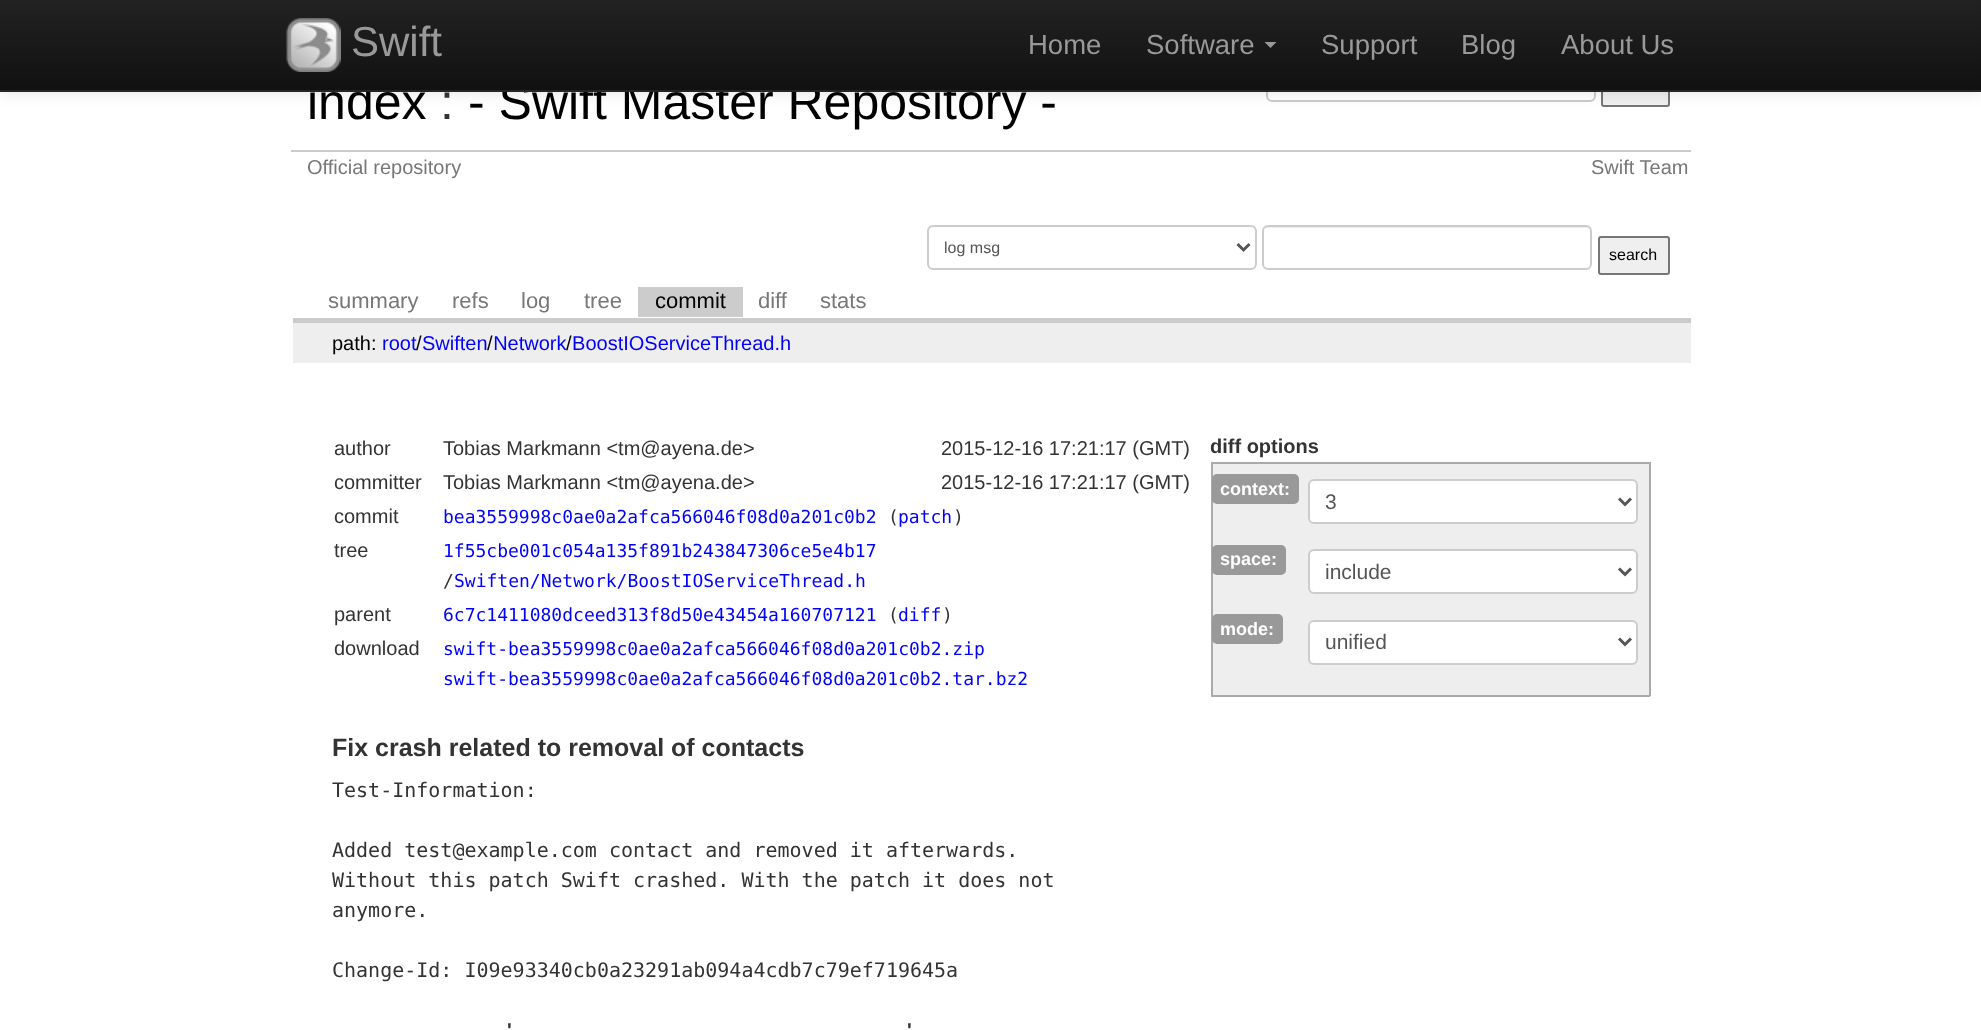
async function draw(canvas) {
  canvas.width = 1981
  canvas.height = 1030
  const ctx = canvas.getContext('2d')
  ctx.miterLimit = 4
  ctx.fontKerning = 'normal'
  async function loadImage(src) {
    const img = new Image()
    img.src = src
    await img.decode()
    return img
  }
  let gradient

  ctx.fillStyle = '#fff'
  ctx.fillRect(0, 0, 1981, 1030)
  ctx.beginPath()
  ctx.roundRect(1267, 58, 328, 43, 5)
  ctx.strokeStyle = '#ccc'
  ctx.lineWidth = 2
  ctx.stroke()
  ctx.fillStyle = '#efefef'
  ctx.beginPath()
  ctx.roundRect(1602, 69, 67, 37, 2)
  ctx.fill()
  ctx.strokeStyle = '#767676'
  ctx.stroke()
  ctx.fillStyle = '#0000001a'
  ctx.filter = 'blur(7.5px)'
  ctx.beginPath()
  ctx.rect(0, 2, 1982, 91)
  ctx.fill()
  ctx.filter = 'none'
  ctx.font = '50px Liberation Sans'
  ctx.fillStyle = '#000'
  ctx.fillText('index', 307, 119)
  ctx.fillText('- Swift Master Repository -', 468, 119)
  gradient = ctx.createLinearGradient(991, 0, 991, 90)
  gradient.addColorStop(0, '#222')
  gradient.addColorStop(1, '#111')
  ctx.fillStyle = gradient
  ctx.fillRect(0, 0, 1981, 90)
  ctx.fillStyle = '#252525'
  ctx.fillRect(0, 90, 1981, 2)
  ctx.drawImage(await loadImage('image0.png'), 286, 18, 55, 54)
  ctx.font = '42px Liberation Sans'
  ctx.fillStyle = '#999'
  ctx.fillText('Swift', 351, 56)
  ctx.font = '27.5px Liberation Sans'
  ctx.fillText('Home', 1028, 54)
  ctx.fillText('Software', 1146, 54)
  ctx.beginPath()
  ctx.moveTo(1264.5, 42)
  ctx.lineTo(1276.5, 42)
  ctx.lineTo(1270.5, 48)
  ctx.closePath()
  ctx.fill()
  ctx.fillText('Support', 1321, 54)
  ctx.fillText('Blog', 1461, 54)
  ctx.fillText('About Us', 1561, 54)
  ctx.font = '50px Liberation Sans'
  ctx.fillStyle = '#333'
  ctx.fillText(':', 440, 119)
  ctx.font = '20px Liberation Sans'
  ctx.fillStyle = '#777'
  ctx.fillText('Official repository', 307, 174)
  ctx.fillStyle = '#ccc'
  ctx.fillRect(291, 150, 1400, 2)
  ctx.fillStyle = '#777'
  ctx.fillText('Swift Team', 1591, 174)
  ctx.fillStyle = '#ccc'
  ctx.fillRect(293, 318, 1398, 5)
  ctx.beginPath()
  ctx.roundRect(928, 226, 328, 43, 5)
  ctx.strokeStyle = '#ccc'
  ctx.stroke()
  ctx.beginPath()
  ctx.moveTo(1237.5, 244)
  ctx.lineTo(1243.5, 250)
  ctx.lineTo(1249.5, 244)
  ctx.strokeStyle = '#555'
  ctx.lineWidth = 3
  ctx.stroke()
  ctx.font = '16px Liberation Sans'
  ctx.fillStyle = '#555'
  ctx.fillText('log msg', 944, 253)
  ctx.fillStyle = '#ececec'
  ctx.beginPath()
  ctx.moveTo(1268, 228)
  ctx.lineTo(1586, 228)
  ctx.bezierCurveTo(1588, 228, 1590, 230, 1590, 232)
  ctx.bezierCurveTo(1590, 229, 1588, 227, 1585, 227)
  ctx.lineTo(1268, 227)
  ctx.bezierCurveTo(1265, 227, 1263, 229, 1263, 232)
  ctx.bezierCurveTo(1263, 230, 1265, 228, 1268, 228)
  ctx.closePath()
  ctx.fill()
  ctx.beginPath()
  ctx.roundRect(1263, 226, 328, 43, 5)
  ctx.strokeStyle = '#ccc'
  ctx.lineWidth = 2
  ctx.stroke()
  ctx.fillStyle = '#efefef'
  ctx.beginPath()
  ctx.roundRect(1599, 237, 70, 37, 2)
  ctx.fill()
  ctx.strokeStyle = '#767676'
  ctx.stroke()
  ctx.fillStyle = '#000'
  ctx.fillText('search', 1609, 260)
  ctx.font = '22px Liberation Sans'
  ctx.fillStyle = '#777'
  ctx.fillText('summary', 328, 308)
  ctx.fillText('refs', 452, 308)
  ctx.fillText('log', 521, 308)
  ctx.fillText('tree', 584, 308)
  ctx.fillStyle = '#ccc'
  ctx.fillRect(638, 287, 105, 30)
  ctx.fillStyle = '#000'
  ctx.fillText('commit', 655, 308)
  ctx.fillStyle = '#777'
  ctx.fillText('diff', 758, 308)
  ctx.fillText('stats', 820, 308)
  ctx.fillStyle = '#eee'
  ctx.fillRect(293, 323, 1398, 40)
  ctx.font = '20px Liberation Sans'
  ctx.fillStyle = '#000'
  ctx.fillText('path:', 332, 350)
  ctx.fillStyle = '#00f'
  ctx.fillText('root Swiften Network BoostIOServiceThread.h', 382, 350)
  ctx.fillStyle = '#000'
  ctx.fillText('/', 416, 350)
  ctx.fillText('/', 487, 350)
  ctx.fillText('/', 566, 350)
  ctx.fillStyle = '#333'
  ctx.fillText('author', 334, 455)
  ctx.fillText('Tobias Markmann <tm@ayena.de>', 443, 455)
  ctx.fillText('2015-12-16 17:21:17 (GMT)', 941, 455)
  ctx.fillText('committer', 334, 489)
  ctx.fillText('Tobias Markmann <tm@ayena.de>', 443, 489)
  ctx.fillText('2015-12-16 17:21:17 (GMT)', 941, 489)
  ctx.fillText('commit', 334, 523)
  ctx.font = '18px DejaVu Sans Mono'
  ctx.fillStyle = '#00f'
  ctx.fillText('bea3559998c0ae0a2afca566046f08d0a201c0b2', 443, 523)
  ctx.fillStyle = '#333'
  ctx.fillText('(', 888, 523)
  ctx.fillStyle = '#00f'
  ctx.fillText('patch', 898, 523)
  ctx.fillStyle = '#333'
  ctx.fillText(')', 953, 523)
  ctx.font = '20px Liberation Sans'
  ctx.fillText('tree', 334, 557)
  ctx.font = '18px DejaVu Sans Mono'
  ctx.fillStyle = '#00f'
  ctx.fillText('1f55cbe001c054a135f891b243847306ce5e4b17', 443, 557)
  ctx.fillStyle = '#333'
  ctx.fillText('/', 443, 587)
  ctx.fillStyle = '#00f'
  ctx.fillText('Swiften/Network/BoostIOServiceThread.h', 454, 587)
  ctx.font = '20px Liberation Sans'
  ctx.fillStyle = '#333'
  ctx.fillText('parent', 334, 621)
  ctx.font = '18px DejaVu Sans Mono'
  ctx.fillStyle = '#00f'
  ctx.fillText('6c7c1411080dceed313f8d50e43454a160707121', 443, 621)
  ctx.fillStyle = '#333'
  ctx.fillText('(', 888, 621)
  ctx.fillStyle = '#00f'
  ctx.fillText('diff', 898, 621)
  ctx.fillStyle = '#333'
  ctx.fillText(')', 942, 621)
  ctx.font = '20px Liberation Sans'
  ctx.fillText('download', 334, 655)
  ctx.font = '18px DejaVu Sans Mono'
  ctx.fillStyle = '#00f'
  ctx.fillText('swift-bea3559998c0ae0a2afca566046f08d0a201c0b2.zip', 443, 655)
  ctx.fillText('swift-bea3559998c0ae0a2afca566046f08d0a201c0b2.tar.bz2', 443, 685)
  ctx.font = 'bold 20px Liberation Sans'
  ctx.fillStyle = '#333'
  ctx.fillText('diff options', 1210, 453)
  ctx.fillStyle = '#eee'
  ctx.fillRect(1213, 464, 436, 231)
  ctx.fillStyle = '#aaa'
  ctx.fillRect(1211, 462, 439, 2)
  ctx.fillRect(1649, 462, 2, 234)
  ctx.fillRect(1211, 695, 439, 2)
  ctx.fillRect(1211, 462, 2, 234)
  ctx.fillStyle = '#999'
  ctx.beginPath()
  ctx.roundRect(1212, 474, 87, 30, 5)
  ctx.fill()
  ctx.font = 'bold 18px Liberation Sans'
  ctx.fillStyle = '#fff'
  ctx.fillText('context:', 1220, 495)
  ctx.beginPath()
  ctx.roundRect(1309, 480, 328, 43, 5)
  ctx.fill()
  ctx.strokeStyle = '#ccc'
  ctx.stroke()
  ctx.beginPath()
  ctx.moveTo(1619, 498.5)
  ctx.lineTo(1625, 504.5)
  ctx.lineTo(1631, 498.5)
  ctx.strokeStyle = '#555'
  ctx.lineWidth = 3
  ctx.stroke()
  ctx.font = '21px Liberation Sans'
  ctx.fillStyle = '#555'
  ctx.fillText('3', 1325, 509)
  ctx.fillStyle = '#999'
  ctx.beginPath()
  ctx.roundRect(1212, 545, 74, 30, 5)
  ctx.fill()
  ctx.font = 'bold 18px Liberation Sans'
  ctx.fillStyle = '#fff'
  ctx.fillText('space:', 1220, 565)
  ctx.beginPath()
  ctx.roundRect(1309, 550, 328, 43, 5)
  ctx.fill()
  ctx.strokeStyle = '#ccc'
  ctx.lineWidth = 2
  ctx.stroke()
  ctx.beginPath()
  ctx.moveTo(1619, 568.5)
  ctx.lineTo(1625, 574.5)
  ctx.lineTo(1631, 568.5)
  ctx.strokeStyle = '#555'
  ctx.lineWidth = 3
  ctx.stroke()
  ctx.font = '21px Liberation Sans'
  ctx.fillStyle = '#555'
  ctx.fillText('include', 1325, 579)
  ctx.fillStyle = '#999'
  ctx.beginPath()
  ctx.roundRect(1212, 614, 71, 30, 5)
  ctx.fill()
  ctx.font = 'bold 18px Liberation Sans'
  ctx.fillStyle = '#fff'
  ctx.fillText('mode:', 1220, 635)
  ctx.beginPath()
  ctx.roundRect(1309, 621, 328, 43, 5)
  ctx.fill()
  ctx.strokeStyle = '#ccc'
  ctx.lineWidth = 2
  ctx.stroke()
  ctx.beginPath()
  ctx.moveTo(1619, 638.5)
  ctx.lineTo(1625, 644.5)
  ctx.lineTo(1631, 638.5)
  ctx.strokeStyle = '#555'
  ctx.lineWidth = 3
  ctx.stroke()
  ctx.font = '21px Liberation Sans'
  ctx.fillStyle = '#555'
  ctx.fillText('unified', 1325, 649)
  ctx.font = 'bold 25px Liberation Sans'
  ctx.fillStyle = '#333'
  ctx.fillText('Fix crash related to removal of contacts', 332, 756)
  ctx.font = '20px DejaVu Sans Mono'
  ctx.fillText('Test-Information:', 332, 797)
  ctx.fillText('Added test@example.com contact and removed it afterwards.', 332, 857)
  ctx.fillText('Without this patch Swift crashed. With the patch it does not', 332, 887)
  ctx.fillText('anymore.', 332, 917)
  ctx.fillText('Change-Id: I09e93340cb0a23291ab094a4cdb7c79ef719645a', 332, 977)
  ctx.font = 'bold 20px Liberation Sans'
  ctx.fillText('\'', 507, 1037)
  ctx.fillText('\'', 907, 1037)
}

draw(document.querySelector('canvas'))
